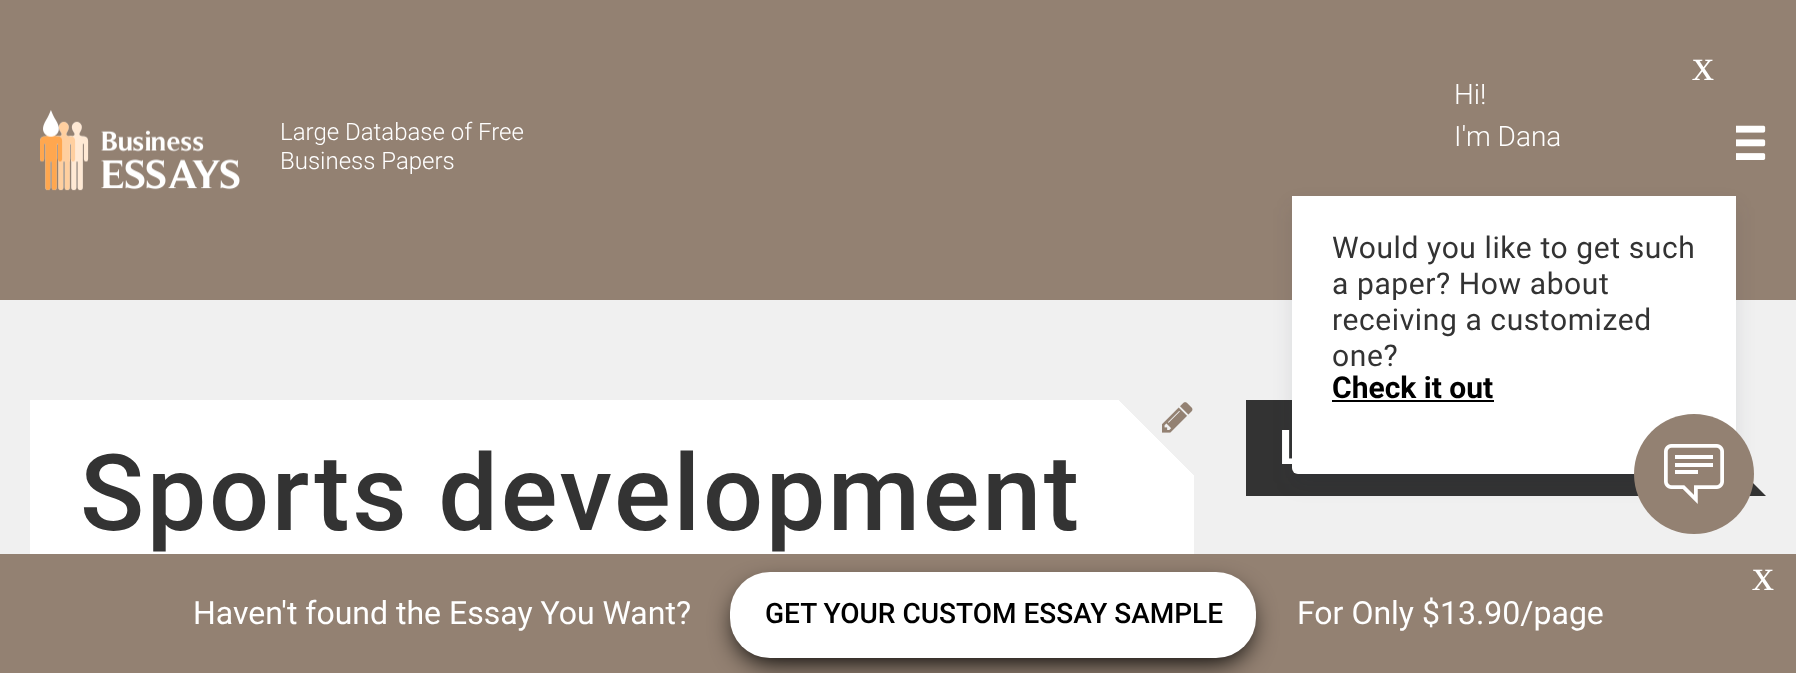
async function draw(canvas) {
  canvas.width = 1796
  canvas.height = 673
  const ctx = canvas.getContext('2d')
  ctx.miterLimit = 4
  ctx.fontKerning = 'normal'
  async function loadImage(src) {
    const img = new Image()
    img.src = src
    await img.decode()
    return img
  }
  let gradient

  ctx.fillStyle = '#f0f0f0'
  ctx.fillRect(0, 0, 1796, 673)
  ctx.fillStyle = '#938172'
  ctx.fillRect(0, 0, 1796, 300)
  ctx.drawImage(await loadImage('image0.png'), 40, 110, 200, 81)
  ctx.font = '300 24px Roboto'
  ctx.fillStyle = '#fff'
  ctx.fillText('Large Database of Free', 280, 140)
  ctx.fillText('Business Papers', 280, 169)
  ctx.drawImage(await loadImage('image1.png'), 1736, 125, 30, 35)
  ctx.font = '44px Liberation Serif'
  ctx.fillText('x', 1692, 80)
  ctx.font = '300 28px Roboto'
  ctx.fillText('Hi!', 1454, 104)
  ctx.fillText('I\'m Dana', 1454, 146)
  ctx.fillStyle = '#333'
  ctx.beginPath()
  ctx.moveTo(1766, 496)
  ctx.lineTo(1246, 496)
  ctx.lineTo(1246, 400)
  ctx.lineTo(1670, 400)
  ctx.closePath()
  ctx.fill()
  ctx.fillStyle = '#1b24371a'
  ctx.filter = 'blur(10px)'
  ctx.beginPath()
  ctx.roundRect(1292, 206, 444, 278, 6)
  ctx.fill()
  ctx.filter = 'none'
  ctx.fillStyle = '#fff'
  ctx.beginPath()
  ctx.roundRect(1292, 196, 444, 278, [0, 0, 6, 6])
  ctx.fill()
  ctx.letterSpacing = '0.6px'
  ctx.font = '30px Roboto'
  ctx.fillStyle = '#333'
  ctx.fillText('Would you like to get such', 1332, 258)
  ctx.fillText('a paper? How about', 1332, 294)
  ctx.fillText('receiving a customized', 1332, 330)
  ctx.fillText('one?', 1332, 366)
  ctx.letterSpacing = '0px'
  ctx.font = 'bold 30px Roboto'
  ctx.fillStyle = '#000'
  ctx.fillText('Check it out', 1332, 398)
  ctx.fillRect(1332, 400, 162, 2)
  ctx.fillStyle = '#938172'
  ctx.beginPath()
  ctx.arc(1694, 474, 60, 0, 2 * Math.PI)
  ctx.fill()
  ctx.drawImage(await loadImage('image2.png'), 1664, 444, 60, 60)
  ctx.letterSpacing = '2px'
  ctx.font = 'bold 48px Roboto'
  ctx.fillStyle = '#fff'
  ctx.fillText('L', 1279, 464)
  gradient = ctx.createLinearGradient(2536, 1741, -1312, 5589)
  gradient.addColorStop(0.01, '#f0f0f0')
  gradient.addColorStop(0.01, '#fff')
  ctx.fillStyle = gradient
  ctx.fillRect(30, 400, 1164, 154)
  ctx.drawImage(await loadImage('image3.png'), 1162, 402, 31, 31)
  ctx.letterSpacing = '2.6px'
  ctx.font = '500 106px Roboto'
  ctx.fillStyle = '#333'
  ctx.fillText('Sports development', 80, 530)
  ctx.fillStyle = '#938172'
  ctx.fillRect(0, 554, 1796, 119)
  ctx.letterSpacing = '0px'
  ctx.font = '44px Liberation Serif'
  ctx.fillStyle = '#fff'
  ctx.fillText('x', 1752, 590)
  ctx.font = '32px Roboto'
  ctx.fillText('Haven\'t found the Essay You Want?', 193, 624)
  ctx.fillStyle = '#000'
  ctx.filter = 'blur(13px)'
  ctx.beginPath()
  ctx.roundRect(736, 588, 514, 74, 34)
  ctx.fill()
  ctx.filter = 'none'
  ctx.fillStyle = '#fff'
  ctx.beginPath()
  ctx.roundRect(730, 572, 526, 86, 40)
  ctx.fill()
  ctx.font = '500 28px Roboto'
  ctx.fillStyle = '#000'
  ctx.fillText('GET YOUR CUSTOM ESSAY SAMPLE', 765, 623)
  ctx.font = '32px Roboto'
  ctx.fillStyle = '#fff'
  ctx.fillText('For Only $13.90/page', 1297, 624)
}

draw(document.querySelector('canvas'))
